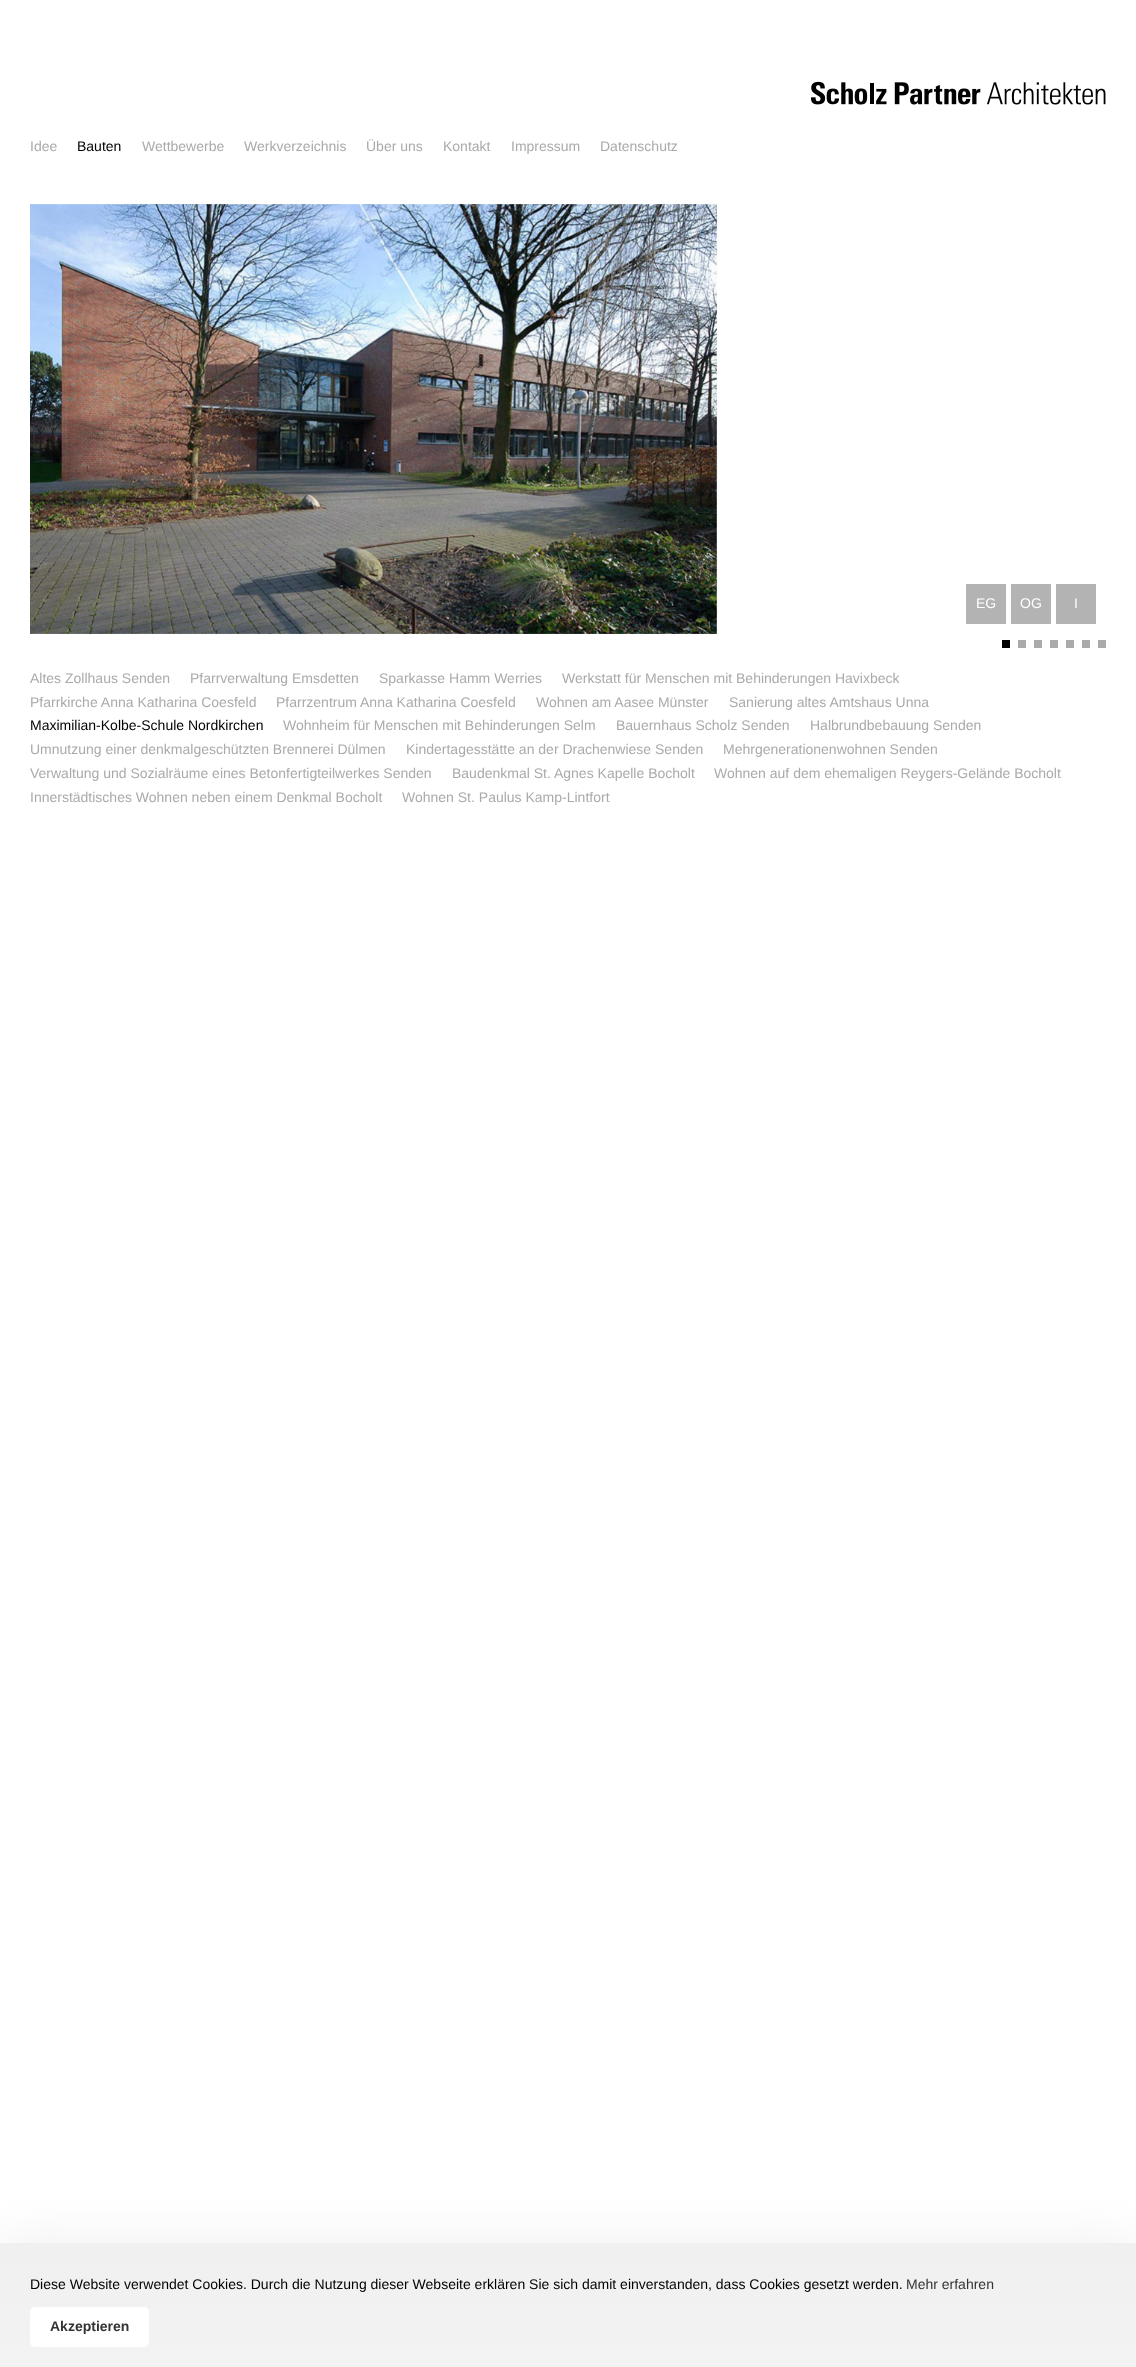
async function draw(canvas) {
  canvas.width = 1136
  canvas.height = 2367
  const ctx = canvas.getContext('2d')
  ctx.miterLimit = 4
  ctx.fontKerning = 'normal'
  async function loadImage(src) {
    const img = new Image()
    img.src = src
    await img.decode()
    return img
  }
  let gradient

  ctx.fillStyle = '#fff'
  ctx.fillRect(0, 0, 1136, 2367)
  ctx.drawImage(await loadImage('image0.png'), 811, 81, 295, 24)
  ctx.font = '14px Liberation Sans'
  ctx.fillStyle = '#aaa'
  ctx.fillText('Idee', 30, 151)
  ctx.fillStyle = '#000'
  ctx.fillText('Bauten', 77, 151)
  ctx.fillStyle = '#aaa'
  ctx.fillText('Wettbewerbe', 142, 151)
  ctx.fillText('Werkverzeichnis', 244, 151)
  ctx.fillText('Über uns', 366, 151)
  ctx.fillText('Kontakt', 443, 151)
  ctx.fillText('Impressum', 511, 151)
  ctx.fillText('Datenschutz', 600, 151)
  ctx.drawImage(await loadImage('image1.png'), 30, 204, 688, 430)
  ctx.fillStyle = '#000'
  ctx.fillRect(1002, 640, 8, 8)
  ctx.fillStyle = '#aaa'
  ctx.fillRect(1018, 640, 8, 8)
  ctx.fillRect(1034, 640, 8, 8)
  ctx.fillRect(1050, 640, 8, 8)
  ctx.fillRect(1066, 640, 8, 8)
  ctx.fillRect(1082, 640, 8, 8)
  ctx.fillRect(1098, 640, 8, 8)
  ctx.fillStyle = '#b3b3b3'
  ctx.fillRect(966, 584, 40, 40)
  ctx.fillStyle = '#fff'
  ctx.fillText('EG', 976, 608)
  ctx.fillStyle = '#b3b3b3'
  ctx.fillRect(1011, 584, 40, 40)
  ctx.fillStyle = '#fff'
  ctx.fillText('OG', 1020, 608)
  ctx.fillStyle = '#b3b3b3'
  ctx.fillRect(1056, 584, 40, 40)
  ctx.fillStyle = '#fff'
  ctx.fillText('I', 1074, 608)
  ctx.fillStyle = '#aaa'
  ctx.fillText('Altes Zollhaus Senden', 30, 683)
  ctx.fillText('Pfarrverwaltung Emsdetten', 190, 683)
  ctx.fillText('Sparkasse Hamm Werries', 379, 683)
  ctx.fillText('Werkstatt für Menschen mit Behinderungen Havixbeck', 562, 683)
  ctx.fillText('Pfarrkirche Anna Katharina Coesfeld', 30, 707)
  ctx.fillText('Pfarrzentrum Anna Katharina Coesfeld', 276, 707)
  ctx.fillText('Wohnen am Aasee Münster', 536, 707)
  ctx.fillText('Sanierung altes Amtshaus Unna', 729, 707)
  ctx.fillStyle = '#000'
  ctx.fillText('Maximilian-Kolbe-Schule Nordkirchen', 30, 730)
  ctx.fillStyle = '#aaa'
  ctx.fillText('Wohnheim für Menschen mit Behinderungen Selm', 283, 730)
  ctx.fillText('Bauernhaus Scholz Senden', 616, 730)
  ctx.fillText('Halbrundbebauung Senden', 810, 730)
  ctx.fillText('Umnutzung einer denkmalgeschützten Brennerei Dülmen', 30, 754)
  ctx.fillText('Kindertagesstätte an der Drachenwiese Senden', 406, 754)
  ctx.fillText('Mehrgenerationenwohnen Senden', 723, 754)
  ctx.fillText('Verwaltung und Sozialräume eines Betonfertigteilwerkes Senden', 30, 778)
  ctx.fillText('Baudenkmal St. Agnes Kapelle Bocholt', 452, 778)
  ctx.fillText('Wohnen auf dem ehemaligen Reygers-Gelände Bocholt', 714, 778)
  ctx.fillText('Innerstädtisches Wohnen neben einem Denkmal Bocholt', 30, 802)
  ctx.fillText('Wohnen St. Paulus Kamp-Lintfort', 402, 802)
  ctx.fillStyle = '#eee'
  ctx.filter = 'blur(25px)'
  ctx.beginPath()
  ctx.rect(0, 2243, 1136, 124)
  ctx.fill()
  ctx.filter = 'none'
  gradient = ctx.createLinearGradient(568, 2243, 568, 2367)
  gradient.addColorStop(0, '#f0f0f0')
  gradient.addColorStop(1, '#f3f3f3')
  ctx.fillStyle = gradient
  ctx.fillRect(0, 2243, 1136, 124)
  ctx.fillStyle = '#000'
  ctx.fillText('Diese Website verwendet Cookies. Durch die Nutzung dieser Webseite erklären Sie sich damit einverstanden, dass Cookies gesetzt werden.', 30, 2289)
  ctx.fillStyle = '#333'
  ctx.fillText('Mehr erfahren', 906, 2289)
  ctx.fillStyle = '#fff'
  ctx.beginPath()
  ctx.roundRect(30, 2307, 119, 40, 5)
  ctx.fill()
  ctx.font = 'bold 14px Liberation Sans'
  ctx.fillStyle = '#333'
  ctx.fillText('Akzeptieren', 50, 2331)
}

draw(document.querySelector('canvas'))
